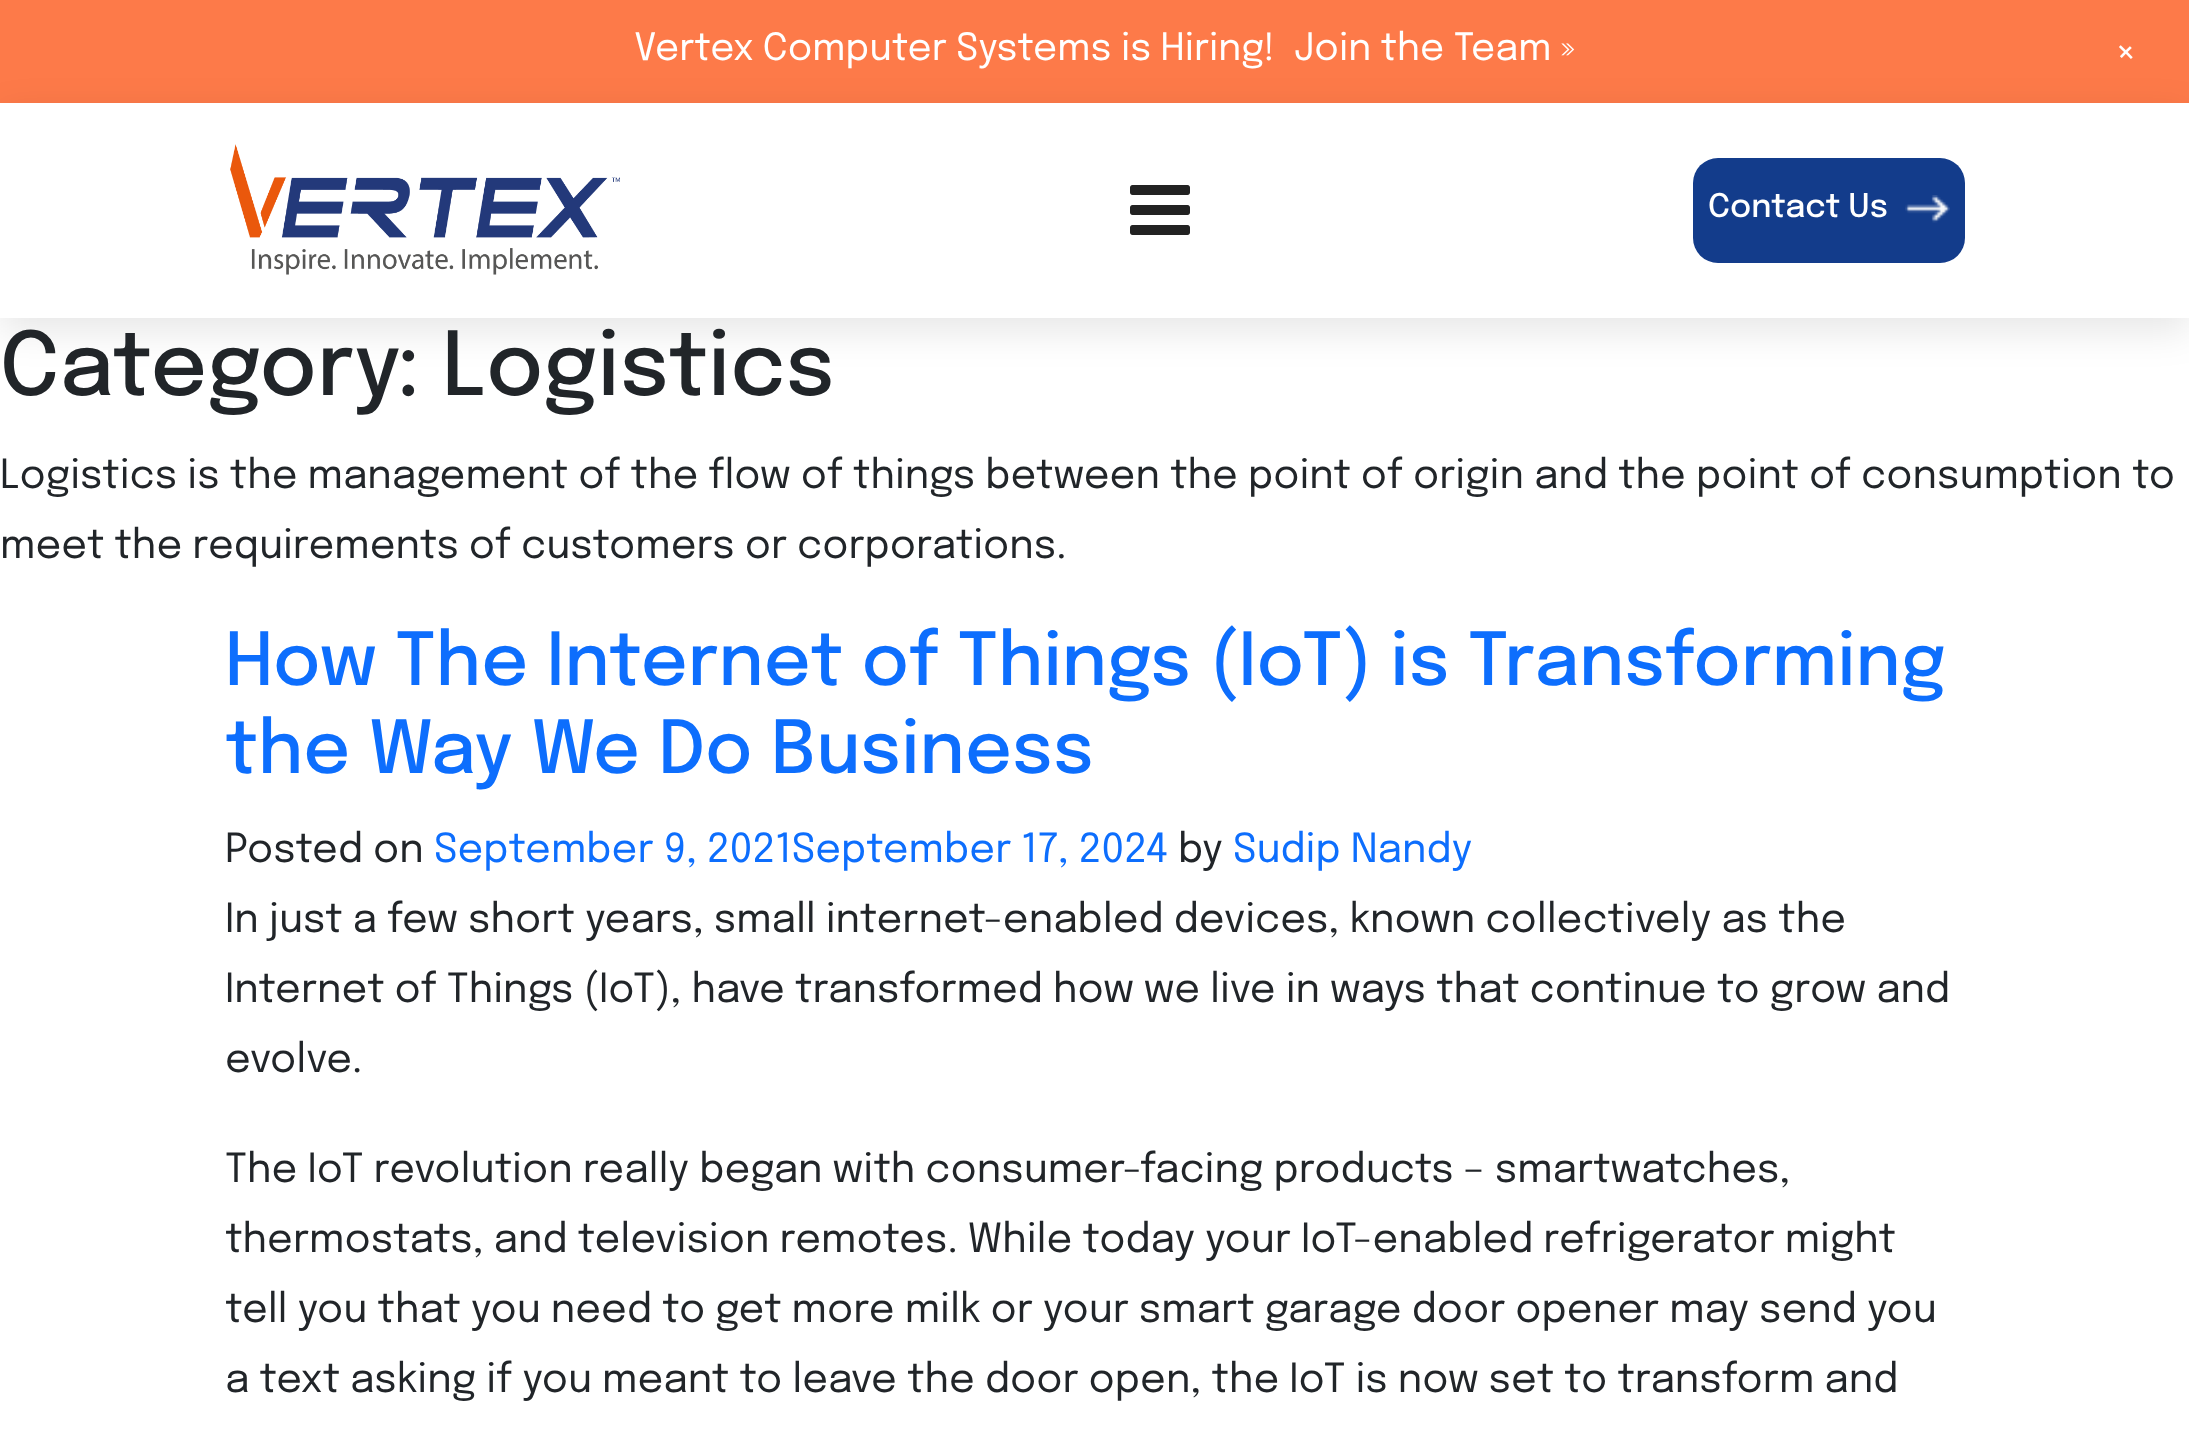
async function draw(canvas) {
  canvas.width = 2189
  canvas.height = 1438
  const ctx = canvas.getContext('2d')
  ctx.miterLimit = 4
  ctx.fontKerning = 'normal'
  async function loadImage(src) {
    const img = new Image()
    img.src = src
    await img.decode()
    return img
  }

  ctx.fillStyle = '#fff'
  ctx.fillRect(0, 0, 2189, 1438)
  ctx.fillStyle = '#fd7a49'
  ctx.fillRect(0, 0, 2189, 103)
  ctx.font = '37.5px Epilogue'
  ctx.fillStyle = '#fff'
  ctx.fillText('Vertex Computer Systems is Hiring!', 634, 60)
  ctx.fillText('Join the Team »', 1294, 60)
  ctx.font = '45px Epilogue'
  ctx.save()
  ctx.translate(2108, 51)
  ctx.rotate(45 * Math.PI / 180)
  ctx.fillText('+', 0, 0)
  ctx.restore()
  ctx.fillStyle = '#0000001a'
  ctx.filter = 'blur(19px)'
  ctx.beginPath()
  ctx.rect(0, 115, 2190, 215)
  ctx.fill()
  ctx.filter = 'none'
  ctx.fillStyle = '#fff'
  ctx.fillRect(0, 103, 2189, 215)
  ctx.drawImage(await loadImage('image0.png'), 230, 144, 390, 131)
  ctx.drawImage(await loadImage('image1.png'), 1130, 185, 60, 50)
  ctx.fillStyle = '#133c8b'
  ctx.beginPath()
  ctx.roundRect(1693, 158, 272, 105, 25)
  ctx.fill()
  ctx.font = '500 32.5px Epilogue'
  ctx.fillStyle = '#fff'
  ctx.fillText('Contact Us', 1708, 217)
  ctx.drawImage(await loadImage('image2.png'), 1905, 195, 45, 28)
  ctx.font = '500 87.75px Epilogue'
  ctx.fillStyle = '#212529'
  ctx.fillText('Category: Logistics', 0, 395)
  ctx.font = '40px Epilogue'
  ctx.fillText('Logistics is the management of the flow of things between the point of origin and the point of consumption to', 0, 488)
  ctx.fillText('meet the requirements of customers or corporations.', 0, 558)
  ctx.font = '500 72.75px Epilogue'
  ctx.fillStyle = '#0d6efd'
  ctx.fillText('How The Internet of Things (IoT) is Transforming', 225, 685)
  ctx.fillText('the Way We Do Business', 225, 773)
  ctx.font = '40px Epilogue'
  ctx.fillStyle = '#212529'
  ctx.fillText('Posted on', 225, 862)
  ctx.fillStyle = '#0d6efd'
  ctx.fillText('September 9, 2021September 17, 2024', 434, 862)
  ctx.fillStyle = '#212529'
  ctx.fillText('by', 1178, 862)
  ctx.fillStyle = '#0d6efd'
  ctx.fillText('Sudip Nandy', 1233, 862)
  ctx.fillStyle = '#212529'
  ctx.fillText('In just a few short years, small internet-enabled devices, known collectively as the', 225, 932)
  ctx.fillText('Internet of Things (IoT), have transformed how we live in ways that continue to grow and', 225, 1002)
  ctx.fillText('evolve.', 225, 1072)
  ctx.fillText('The IoT revolution really began with consumer-facing products – smartwatches,', 225, 1182)
  ctx.fillText('thermostats, and television remotes. While today your IoT-enabled refrigerator might', 225, 1252)
  ctx.fillText('tell you that you need to get more milk or your smart garage door opener may send you', 225, 1322)
  ctx.fillText('a text asking if you meant to leave the door open, the IoT is now set to transform and', 225, 1392)
}

draw(document.querySelector('canvas'))
